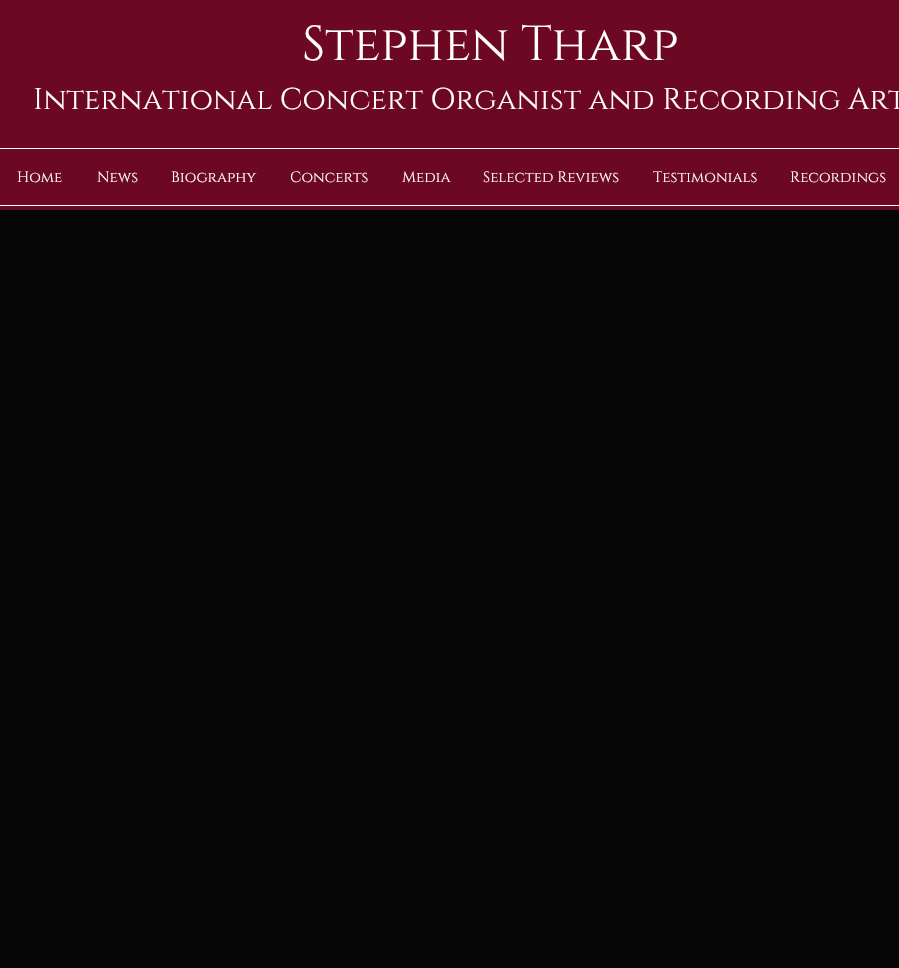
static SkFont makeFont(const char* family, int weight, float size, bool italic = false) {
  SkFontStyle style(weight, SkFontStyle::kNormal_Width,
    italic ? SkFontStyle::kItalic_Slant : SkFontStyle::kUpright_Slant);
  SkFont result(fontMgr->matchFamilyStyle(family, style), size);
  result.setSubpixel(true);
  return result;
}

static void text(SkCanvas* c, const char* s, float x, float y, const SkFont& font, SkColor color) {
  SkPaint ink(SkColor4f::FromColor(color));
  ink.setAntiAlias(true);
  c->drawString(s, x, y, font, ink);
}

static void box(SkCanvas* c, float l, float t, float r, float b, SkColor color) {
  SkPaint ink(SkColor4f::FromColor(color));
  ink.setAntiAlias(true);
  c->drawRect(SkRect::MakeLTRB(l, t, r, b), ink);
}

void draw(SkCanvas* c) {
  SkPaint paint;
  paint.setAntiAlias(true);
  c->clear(0xff070606);
  box(c, 0, 0, 899, 210, 0xff6d0823);
  SkFont face1 = makeFont("Cinzel", 400, 49);
  text(c, "Stephen Tharp", 302, 60, face1, 0xffffffff);
  SkFont face2 = makeFont("Cinzel", 400, 30);
  text(c, "International Concert Organist and Recording Art", 33, 109, face2, 0xffffffff);
  box(c, 0, 148, 899, 149, 0xffffffff);
  SkFont face3 = makeFont("Cinzel", 400, 15);
  text(c, "Home", 17, 182, face3, 0xffffffff);
  text(c, "News", 97, 182, face3, 0xffffffff);
  text(c, "Biography", 171, 182, face3, 0xffffffff);
  text(c, "Concerts", 290, 182, face3, 0xffffffff);
  text(c, "Media", 402, 182, face3, 0xffffffff);
  text(c, "Selected Reviews", 483, 182, face3, 0xffffffff);
  text(c, "Testimonials", 653, 182, face3, 0xffffffff);
  text(c, "Recordings", 790, 182, face3, 0xffffffff);
  box(c, 0, 205, 899, 206, 0xffffffff);
}
